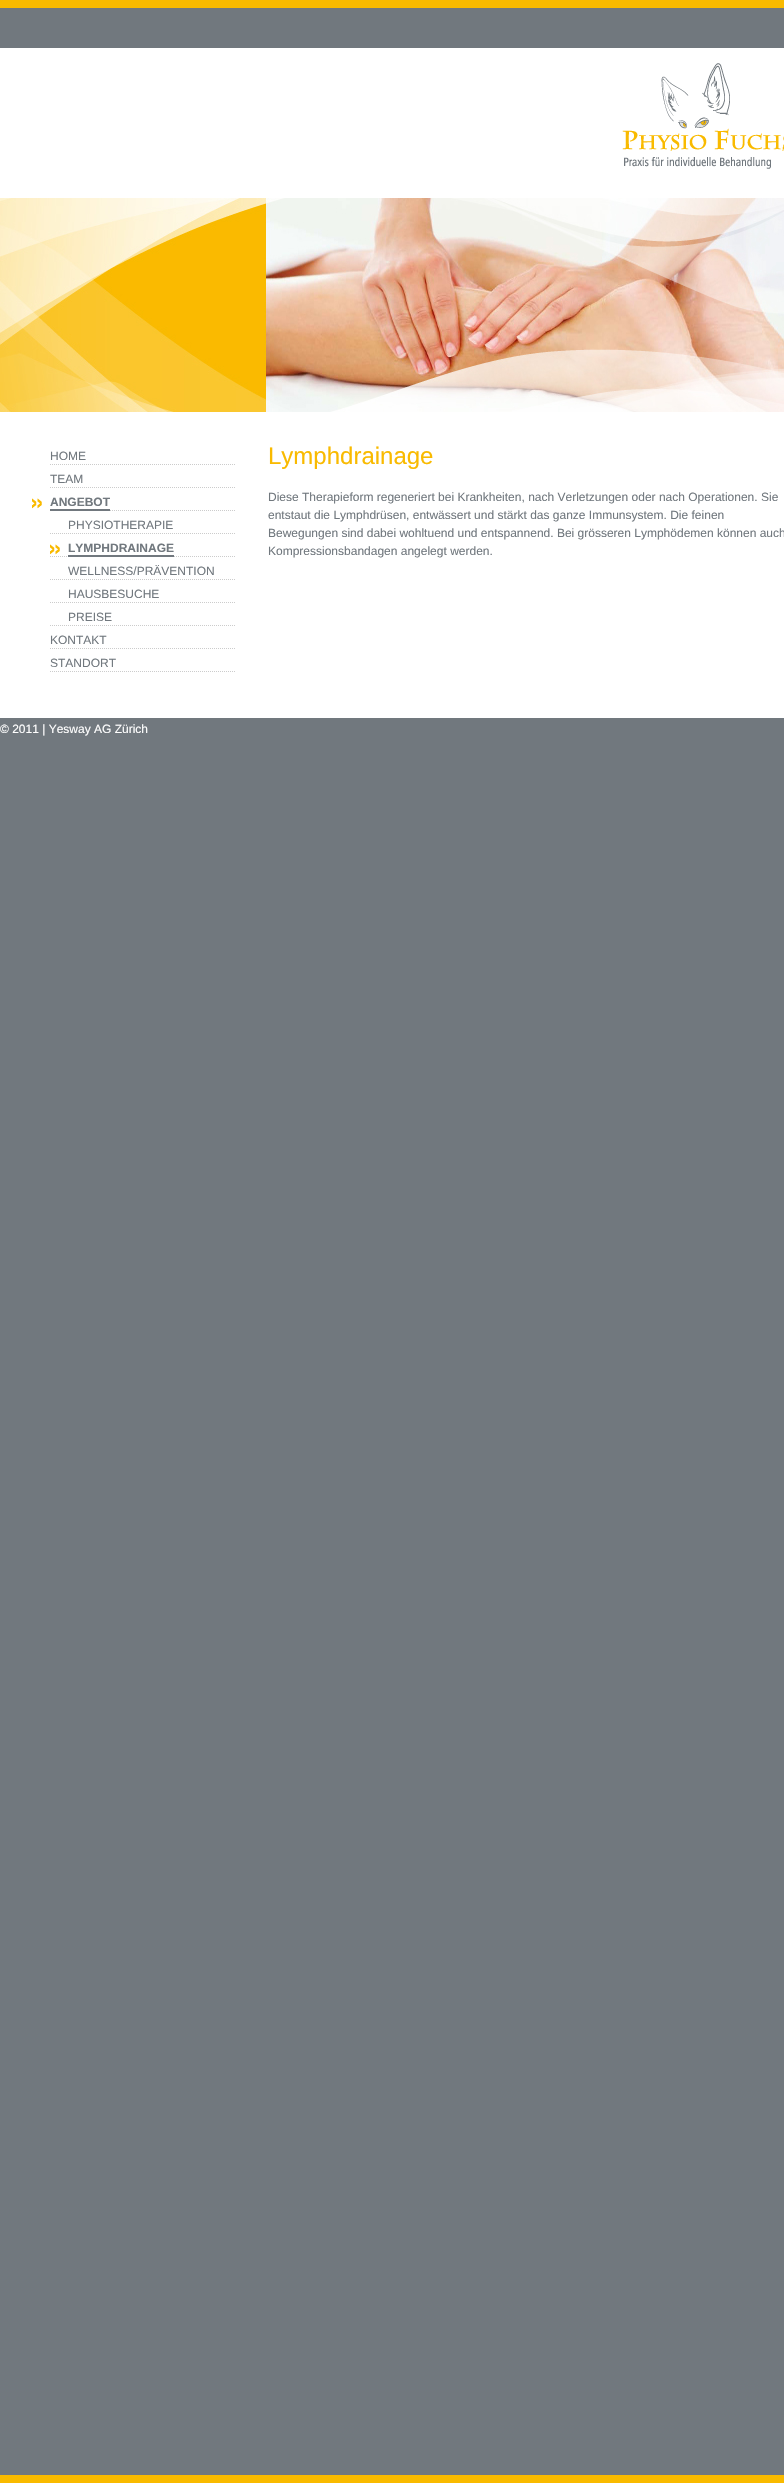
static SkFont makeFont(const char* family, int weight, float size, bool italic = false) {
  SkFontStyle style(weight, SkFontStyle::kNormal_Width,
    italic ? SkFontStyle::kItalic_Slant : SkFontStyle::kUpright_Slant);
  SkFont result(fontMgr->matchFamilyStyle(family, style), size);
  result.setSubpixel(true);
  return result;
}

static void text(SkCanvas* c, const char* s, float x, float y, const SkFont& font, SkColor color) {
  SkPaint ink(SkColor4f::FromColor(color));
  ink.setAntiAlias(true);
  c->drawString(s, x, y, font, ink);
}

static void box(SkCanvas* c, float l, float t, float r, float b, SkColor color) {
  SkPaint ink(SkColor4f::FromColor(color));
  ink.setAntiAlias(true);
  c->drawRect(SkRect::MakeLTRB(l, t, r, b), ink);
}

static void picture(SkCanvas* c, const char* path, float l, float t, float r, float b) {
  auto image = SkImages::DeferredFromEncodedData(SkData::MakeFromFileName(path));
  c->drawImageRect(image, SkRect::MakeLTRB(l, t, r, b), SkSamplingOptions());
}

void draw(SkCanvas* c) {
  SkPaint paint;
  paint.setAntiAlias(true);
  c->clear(0xff71787e);
  box(c, 0, 0, 784, 8, 0xfff9ba00);
  box(c, 0, 48, 784, 718, 0xffffffff);
  picture(c, "img_01.png", 622, 63, 784, 169);
  picture(c, "img_02.png", 0, 198, 784, 412);
  paint.setStyle(SkPaint::kStroke_Style);
  paint.setStrokeWidth(1);
  paint.setColor(0xffcccccc);
  paint.setPathEffect(SkDashPathEffect::Make({{1, 1}}, 0));
  c->drawPath(SkPathBuilder().moveTo(50, 464.5f).lineTo(236, 464.5f).detach(), paint);
  paint.setPathEffect(nullptr);
  SkFont face1 = makeFont("Liberation Sans", 400, 12);
  text(c, "HOME", 50, 460, face1, 0xff71787e);
  paint.setPathEffect(SkDashPathEffect::Make({{1, 1}}, 0));
  c->drawPath(SkPathBuilder().moveTo(50, 487.5f).lineTo(236, 487.5f).detach(), paint);
  paint.setPathEffect(nullptr);
  text(c, "TEAM", 50, 483, face1, 0xff71787e);
  picture(c, "img_03.png", 32, 498, 42, 509);
  paint.setPathEffect(SkDashPathEffect::Make({{1, 1}}, 0));
  c->drawPath(SkPathBuilder().moveTo(50, 510.5f).lineTo(236, 510.5f).detach(), paint);
  paint.setPathEffect(nullptr);
  SkFont face2 = makeFont("Liberation Sans", 700, 12);
  text(c, "ANGEBOT", 50, 506, face2, 0xff71787e);
  box(c, 50, 509, 110, 511, 0xff71787e);
  paint.setPathEffect(SkDashPathEffect::Make({{1, 1}}, 0));
  c->drawPath(SkPathBuilder().moveTo(50, 533.5f).lineTo(236, 533.5f).detach(), paint);
  paint.setPathEffect(nullptr);
  text(c, "PHYSIOTHERAPIE", 68, 529, face1, 0xff71787e);
  picture(c, "img_03.png", 50, 544, 60, 555);
  paint.setPathEffect(SkDashPathEffect::Make({{1, 1}}, 0));
  c->drawPath(SkPathBuilder().moveTo(50, 556.5f).lineTo(236, 556.5f).detach(), paint);
  paint.setPathEffect(nullptr);
  text(c, "LYMPHDRAINAGE", 68, 552, face2, 0xff71787e);
  box(c, 68, 555, 174, 557, 0xff71787e);
  paint.setPathEffect(SkDashPathEffect::Make({{1, 1}}, 0));
  c->drawPath(SkPathBuilder().moveTo(50, 579.5f).lineTo(236, 579.5f).detach(), paint);
  paint.setPathEffect(nullptr);
  text(c, "WELLNESS/PRÄVENTION", 68, 575, face1, 0xff71787e);
  paint.setPathEffect(SkDashPathEffect::Make({{1, 1}}, 0));
  c->drawPath(SkPathBuilder().moveTo(50, 602.5f).lineTo(236, 602.5f).detach(), paint);
  paint.setPathEffect(nullptr);
  text(c, "HAUSBESUCHE", 68, 598, face1, 0xff71787e);
  paint.setPathEffect(SkDashPathEffect::Make({{1, 1}}, 0));
  c->drawPath(SkPathBuilder().moveTo(50, 625.5f).lineTo(236, 625.5f).detach(), paint);
  paint.setPathEffect(nullptr);
  text(c, "PREISE", 68, 621, face1, 0xff71787e);
  paint.setPathEffect(SkDashPathEffect::Make({{1, 1}}, 0));
  c->drawPath(SkPathBuilder().moveTo(50, 648.5f).lineTo(236, 648.5f).detach(), paint);
  paint.setPathEffect(nullptr);
  text(c, "KONTAKT", 50, 644, face1, 0xff71787e);
  paint.setPathEffect(SkDashPathEffect::Make({{1, 1}}, 0));
  c->drawPath(SkPathBuilder().moveTo(50, 671.5f).lineTo(236, 671.5f).detach(), paint);
  paint.setPathEffect(nullptr);
  text(c, "STANDORT", 50, 667, face1, 0xff71787e);
  SkFont face3 = makeFont("Liberation Sans", 400, 24);
  text(c, "Lymphdrainage", 268, 464, face3, 0xfff9ba00);
  text(c, "Diese Therapieform regeneriert bei Krankheiten, nach Verletzungen oder nach Operationen. Sie", 268, 501, face1, 0xff71787e);
  text(c, "entstaut die Lymphdrüsen, entwässert und stärkt das ganze Immunsystem. Die feinen", 268, 519, face1, 0xff71787e);
  text(c, "Bewegungen sind dabei wohltuend und entspannend. Bei grösseren Lymphödemen können auch", 268, 537, face1, 0xff71787e);
  text(c, "Kompressionsbandagen angelegt werden.", 268, 555, face1, 0xff71787e);
  text(c, "© 2011 | Yesway AG Zürich", 0, 733, face1, 0xffffffff);
  box(c, 0, 2475, 784, 2483, 0xfff9ba00);
}
